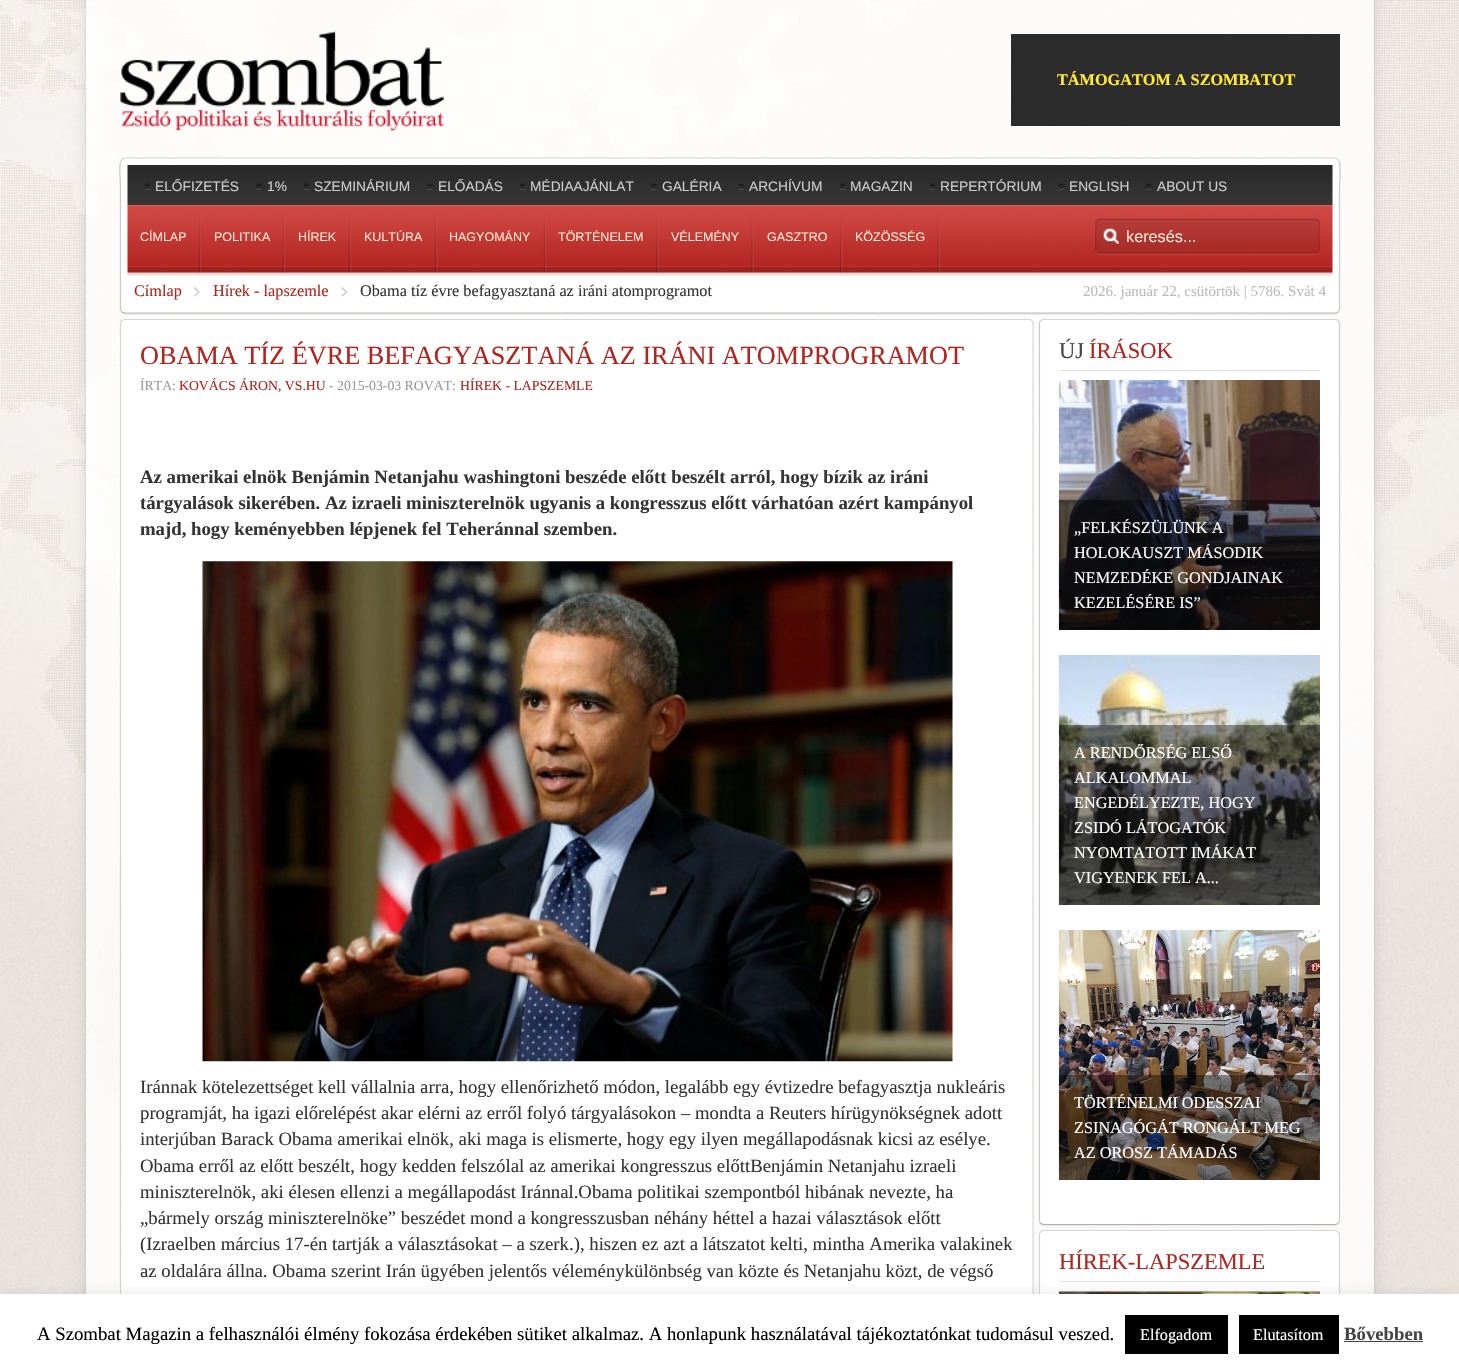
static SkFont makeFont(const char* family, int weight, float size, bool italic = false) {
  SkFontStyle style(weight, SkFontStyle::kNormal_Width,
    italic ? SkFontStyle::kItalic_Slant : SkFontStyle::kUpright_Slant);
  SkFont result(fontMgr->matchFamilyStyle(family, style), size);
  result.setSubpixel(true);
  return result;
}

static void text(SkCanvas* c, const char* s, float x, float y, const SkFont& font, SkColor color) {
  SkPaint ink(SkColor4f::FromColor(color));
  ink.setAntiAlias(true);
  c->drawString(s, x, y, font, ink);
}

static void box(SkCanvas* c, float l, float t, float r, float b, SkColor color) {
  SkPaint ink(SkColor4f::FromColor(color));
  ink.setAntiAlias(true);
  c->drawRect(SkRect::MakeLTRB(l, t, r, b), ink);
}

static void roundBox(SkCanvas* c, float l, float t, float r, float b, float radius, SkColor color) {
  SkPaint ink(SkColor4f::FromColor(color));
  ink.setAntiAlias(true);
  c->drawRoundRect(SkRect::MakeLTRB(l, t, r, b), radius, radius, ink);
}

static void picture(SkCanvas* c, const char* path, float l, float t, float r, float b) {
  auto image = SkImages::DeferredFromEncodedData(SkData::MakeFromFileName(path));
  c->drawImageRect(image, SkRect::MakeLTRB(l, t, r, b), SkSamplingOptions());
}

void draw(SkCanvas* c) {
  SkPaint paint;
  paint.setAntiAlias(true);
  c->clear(0xffffffff);
  picture(c, "img_01.png", 0, 1112, 1459, 1294);
  picture(c, "img_02.png", 0, 0, 1459, 1113);
  c->save();
  c->clipPath(SkPathBuilder(SkPathFillType::kEvenOdd).moveTo(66, 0).lineTo(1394, 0).lineTo(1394, 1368).lineTo(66, 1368).close().moveTo(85, 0).lineTo(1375, 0).lineTo(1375, 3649).lineTo(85, 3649).close().detach(), true);
  paint.setColor(0x1a000000);
  paint.setMaskFilter(SkMaskFilter::MakeBlur(kNormal_SkBlurStyle, 6));
  c->drawRect(SkRect::MakeLTRB(85, 0, 1375, 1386), paint);
  paint.setMaskFilter(nullptr);
  c->restore();
  box(c, 86, 0, 1374, 1294, 0xccffffff);
  box(c, 1374, 0, 1375, 1294, 0x1a000000);
  box(c, 85, 0, 86, 1294, 0x1a000000);
  picture(c, "img_03.png", 120, 31, 444, 132);
  box(c, 1011, 34, 1340, 126, 0xff2c2c2c);
  SkFont face1 = makeFont("Liberation Serif", 700, 16.25f);
  text(c, "TÁMOGATOM A SZOMBATOT", 1057, 85, face1, 0xffffe937);
  paint.setColor(0x0f000000);
  paint.setMaskFilter(SkMaskFilter::MakeBlur(kNormal_SkBlurStyle, 0.5f));
  c->drawRoundRect(SkRect::MakeLTRB(120, 159, 1340, 315), 5, 5, paint);
  paint.setMaskFilter(nullptr);
  roundBox(c, 121, 159, 1339, 313, 4, 0xffffffff);
  paint.setStyle(SkPaint::kStroke_Style);
  paint.setStrokeWidth(1.2f);
  paint.setColor(0x40000000);
  c->drawPath(SkPathBuilder().moveTo(1338, 312).lineTo(1335, 313).lineTo(125, 313).lineTo(122, 312).detach(), paint);
  paint.setColor(0x26000000);
  c->drawPath(SkPathBuilder().moveTo(122, 312).lineTo(120.5f, 309).lineTo(120.5f, 187).cubicTo(120.5f, 178.5f, 116.5f, 158, 125, 158).lineTo(1335, 158).cubicTo(1343.5f, 158, 1339.5f, 178.5f, 1339.5f, 187).lineTo(1339.5f, 309).lineTo(1338, 312).detach(), paint);
  picture(c, "img_04.png", 127, 165, 1333, 205);
  picture(c, "img_05.png", 145, 183, 150, 190);
  SkFont face2 = makeFont("Liberation Sans", 400, 13.75f);
  text(c, "ELŐFIZETÉS", 155, 191, face2, 0xffcccccc);
  picture(c, "img_06.png", 256, 183, 262, 190);
  text(c, "1%", 267, 191, face2, 0xffcccccc);
  picture(c, "img_07.png", 304, 183, 309, 190);
  text(c, "SZEMINÁRIUM", 314, 191, face2, 0xffcccccc);
  picture(c, "img_08.png", 427, 183, 433, 190);
  text(c, "ELŐADÁS", 438, 191, face2, 0xffcccccc);
  picture(c, "img_05.png", 520, 183, 525, 190);
  text(c, "MÉDIAAJÁNLAT", 530, 191, face2, 0xffcccccc);
  picture(c, "img_09.png", 651, 183, 657, 190);
  text(c, "GALÉRIA", 662, 191, face2, 0xffcccccc);
  picture(c, "img_10.png", 739, 183, 744, 190);
  text(c, "ARCHÍVUM", 749, 191, face2, 0xffcccccc);
  picture(c, "img_11.png", 840, 183, 845, 190);
  text(c, "MAGAZIN", 850, 191, face2, 0xffcccccc);
  picture(c, "img_12.png", 930, 183, 935, 190);
  text(c, "REPERTÓRIUM", 940, 191, face2, 0xffcccccc);
  picture(c, "img_13.png", 1058, 183, 1064, 190);
  text(c, "ENGLISH", 1069, 191, face2, 0xffcccccc);
  picture(c, "img_14.png", 1146, 183, 1152, 190);
  text(c, "ABOUT US", 1157, 191, face2, 0xffcccccc);
  picture(c, "img_15.png", 127, 205, 1333, 276);
  picture(c, "img_16.png", 198, 213, 202, 273);
  SkFont face3 = makeFont("Liberation Sans", 400, 12.5f);
  text(c, "CÍMLAP", 140, 241, face3, 0xfff4e4d5);
  picture(c, "img_17.png", 282, 214, 285, 273);
  text(c, "POLITIKA", 214, 241, face3, 0xfff4e4d5);
  picture(c, "img_18.png", 348, 213, 352, 273);
  text(c, "HÍREK", 298, 241, face3, 0xfff4e4d5);
  picture(c, "img_19.png", 435, 213, 438, 273);
  text(c, "KULTÚRA", 364, 241, face3, 0xfff4e4d5);
  picture(c, "img_20.png", 543, 213, 547, 273);
  text(c, "HAGYOMÁNY", 449, 241, face3, 0xfff4e4d5);
  picture(c, "img_21.png", 656, 217, 659, 273);
  text(c, "TÖRTÉNELEM", 558, 241, face3, 0xfff4e4d5);
  picture(c, "img_22.png", 751, 217, 754, 273);
  text(c, "VÉLEMÉNY", 671, 241, face3, 0xfff4e4d5);
  picture(c, "img_23.png", 840, 213, 843, 273);
  text(c, "GASZTRO", 767, 241, face3, 0xfff4e4d5);
  picture(c, "img_24.png", 937, 214, 940, 273);
  text(c, "KÖZÖSSÉG", 855, 241, face3, 0xfff4e4d5);
  picture(c, "img_25.png", 1095, 218, 1320, 255);
  SkFont face4 = makeFont("Liberation Sans", 400, 16.25f);
  text(c, "keresés...", 1126, 242, face4, 0xfff4e4d5);
  picture(c, "img_26.png", 193, 287, 200, 297);
  SkFont face5 = makeFont("Liberation Serif", 400, 16.25f);
  text(c, "Címlap", 134, 296, face5, 0xffb2251f);
  picture(c, "img_27.png", 341, 287, 348, 297);
  text(c, "Hírek - lapszemle", 213, 296, face5, 0xffb2251f);
  text(c, "Obama tíz évre befagyasztaná az iráni atomprogramot", 360, 296, face5, 0xff343434);
  SkFont face6 = makeFont("Liberation Serif", 400, 15);
  text(c, "2026. január 22, csütörtök | 5786. Svát 4", 1083, 296, face6, 0xffbbbbbb);
  roundBox(c, 121, 320, 1033, 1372, 4, 0xffffffff);
  c->drawPath(SkPathBuilder().moveTo(122, 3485.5f).cubicTo(121, 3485, 120.5f, 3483.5f, 120.5f, 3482.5f).lineTo(120.5f, 324).cubicTo(120.5f, 322.5f, 121, 321.5f, 122, 320.5f).cubicTo(122.5f, 320, 124, 319.5f, 125, 319.5f).lineTo(1029, 319.5f).cubicTo(1030, 319.5f, 1031, 320, 1032, 320.5f).cubicTo(1032.5f, 321.5f, 1033, 322.5f, 1033, 324).lineTo(1033, 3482.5f).cubicTo(1033, 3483.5f, 1032.5f, 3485, 1032, 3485.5f).detach(), paint);
  SkFont face7 = makeFont("Liberation Serif", 400, 26.25f);
  text(c, "OBAMA TÍZ ÉVRE BEFAGYASZTANÁ AZ IRÁNI ATOMPROGRAMOT", 140, 364, face7, 0xffb2251f);
  SkFont face8 = makeFont("Liberation Serif", 400, 13.75f);
  text(c, "ÍRTA:", 140, 390, face8, 0xff999999);
  text(c, "KOVÁCS ÁRON, VS.HU", 179, 390, face8, 0xffb2251f);
  text(c, "- 2015-03-03 ROVAT:", 329, 390, face8, 0xff999999);
  text(c, "HÍREK - LAPSZEMLE", 460, 390, face8, 0xffb2251f);
  SkFont face9 = makeFont("Liberation Serif", 700, 18.75f);
  text(c, "Az amerikai elnök Benjámin Netanjahu washingtoni beszéde előtt beszélt arról, hogy bízik az iráni", 140, 483, face9, 0xff343434);
  text(c, "tárgyalások sikerében. Az izraeli miniszterelnök ugyanis a kongresszus előtt várhatóan azért kampányol", 140, 509, face9, 0xff343434);
  text(c, "majd, hogy keményebben lépjenek fel Teheránnal szemben.", 140, 535, face9, 0xff343434);
  picture(c, "img_28.png", 202, 561, 953, 1062);
  SkFont face10 = makeFont("Liberation Serif", 400, 18.75f);
  text(c, "Iránnak kötelezettséget kell vállalnia arra, hogy ellenőrizhető módon, legalább egy évtizedre befagyasztja nukleáris", 140, 1093, face10, 0xff343434);
  text(c, "programját, ha igazi előrelépést akar elérni az erről folyó tárgyalásokon – mondta a Reuters hírügynökségnek adott", 140, 1119, face10, 0xff343434);
  text(c, "interjúban Barack Obama amerikai elnök, aki maga is elismerte, hogy egy ilyen megállapodásnak kicsi az esélye.", 140, 1145, face10, 0xff343434);
  text(c, "Obama erről az előtt beszélt, hogy kedden felszólal az amerikai kongresszus előttBenjámin Netanjahu izraeli", 140, 1172, face10, 0xff343434);
  text(c, "miniszterelnök, aki élesen ellenzi a megállapodást Iránnal.Obama politikai szempontból hibának nevezte, ha", 140, 1198, face10, 0xff343434);
  text(c, "„bármely ország miniszterelnöke” beszédet mond a kongresszusban néhány héttel a hazai választások előtt", 140, 1224, face10, 0xff343434);
  text(c, "(Izraelben március 17-én tartják a választásokat – a szerk.), hiszen ez azt a látszatot kelti, mintha Amerika valakinek", 140, 1250, face10, 0xff343434);
  text(c, "az oldalára állna. Obama szerint Irán ügyében jelentős véleménykülönbség van közte és Netanjahu közt, de végső", 140, 1277, face10, 0xff343434);
  paint.setStyle(SkPaint::kFill_Style);
  paint.setColor(0x0f000000);
  paint.setMaskFilter(SkMaskFilter::MakeBlur(kNormal_SkBlurStyle, 0.5f));
  c->drawRoundRect(SkRect::MakeLTRB(1039, 320, 1340, 1226), 5, 5, paint);
  paint.setMaskFilter(nullptr);
  roundBox(c, 1040, 320, 1339, 1224, 4, 0xffffffff);
  paint.setStyle(SkPaint::kStroke_Style);
  paint.setColor(0x40000000);
  c->drawPath(SkPathBuilder().moveTo(1338, 1223).cubicTo(1337.5f, 1224, 1336, 1224.5f, 1335, 1224.5f).lineTo(1044, 1224.5f).cubicTo(1042.5f, 1224.5f, 1041.5f, 1224, 1040.5f, 1223).detach(), paint);
  paint.setColor(0x26000000);
  c->drawPath(SkPathBuilder().moveTo(1040.5f, 1223).cubicTo(1040, 1222.5f, 1039.5f, 1221, 1039.5f, 1220).lineTo(1039.5f, 324).cubicTo(1039.5f, 322.5f, 1040, 321.5f, 1040.5f, 320.5f).cubicTo(1041.5f, 320, 1042.5f, 319.5f, 1044, 319.5f).lineTo(1335, 319.5f).cubicTo(1336, 319.5f, 1337.5f, 320, 1338, 320.5f).cubicTo(1339, 321.5f, 1339.5f, 322.5f, 1339.5f, 324).lineTo(1339.5f, 1220).cubicTo(1339.5f, 1221, 1339, 1222.5f, 1338, 1223).detach(), paint);
  box(c, 1059, 370, 1320, 371, 0xffe2e2e2);
  SkFont face11 = makeFont("Liberation Serif", 400, 22.5f);
  text(c, "ÚJ", 1059, 358, face11, 0xff444444);
  text(c, "ÍRÁSOK", 1089, 358, face11, 0xffb2251f);
  picture(c, "img_29.png", 1058, 380, 1320, 630);
  box(c, 1059, 500, 1320, 630, 0x66000000);
  text(c, "„FELKÉSZÜLÜNK A", 1074, 533, face5, 0xffffffff);
  text(c, "HOLOKAUSZT MÁSODIK", 1074, 558, face5, 0xffffffff);
  text(c, "NEMZEDÉKE GONDJAINAK", 1074, 583, face5, 0xffffffff);
  text(c, "KEZELÉSÉRE IS”", 1074, 608, face5, 0xffffffff);
  picture(c, "img_30.png", 1058, 655, 1320, 905);
  box(c, 1059, 725, 1320, 905, 0x66000000);
  text(c, "A RENDŐRSÉG ELSŐ", 1074, 758, face5, 0xffffffff);
  text(c, "ALKALOMMAL", 1074, 783, face5, 0xffffffff);
  text(c, "ENGEDÉLYEZTE, HOGY", 1074, 808, face5, 0xffffffff);
  text(c, "ZSIDÓ LÁTOGATÓK", 1074, 833, face5, 0xffffffff);
  text(c, "NYOMTATOTT IMÁKAT", 1074, 858, face5, 0xffffffff);
  text(c, "VIGYENEK FEL A...", 1074, 883, face5, 0xffffffff);
  picture(c, "img_31.png", 1058, 930, 1320, 1180);
  box(c, 1059, 1075, 1320, 1180, 0x66000000);
  text(c, "TÖRTÉNELMI ODESSZAI", 1074, 1108, face5, 0xffffffff);
  text(c, "ZSINAGÓGÁT RONGÁLT MEG", 1074, 1133, face5, 0xffffffff);
  text(c, "AZ OROSZ TÁMADÁS", 1074, 1158, face5, 0xffffffff);
  roundBox(c, 1040, 1231, 1339, 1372, 4, 0xffffffff);
  c->drawPath(SkPathBuilder().moveTo(1040.5f, 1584.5f).cubicTo(1040, 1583.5f, 1039.5f, 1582.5f, 1039.5f, 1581).lineTo(1039.5f, 1235).cubicTo(1039.5f, 1234, 1040, 1232.5f, 1040.5f, 1232).cubicTo(1041.5f, 1231, 1042.5f, 1230.5f, 1044, 1230.5f).lineTo(1335, 1230.5f).cubicTo(1336, 1230.5f, 1337.5f, 1231, 1338, 1232).cubicTo(1339, 1232.5f, 1339.5f, 1234, 1339.5f, 1235).lineTo(1339.5f, 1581).cubicTo(1339.5f, 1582.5f, 1339, 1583.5f, 1338, 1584.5f).detach(), paint);
  box(c, 1059, 1281, 1320, 1282, 0xffe2e2e2);
  text(c, "HÍREK-LAPSZEMLE", 1059, 1269, face11, 0xffb2251f);
  picture(c, "img_32.png", 1058, 1291, 1320, 1294);
  paint.setStyle(SkPaint::kFill_Style);
  paint.setColor(0x4dacabab);
  paint.setMaskFilter(SkMaskFilter::MakeBlur(kNormal_SkBlurStyle, 6));
  c->drawRect(SkRect::MakeLTRB(0, 1293, 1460, 1368), paint);
  paint.setMaskFilter(nullptr);
  box(c, 0, 1294, 1459, 1368, 0xffffffff);
  text(c, "A Szombat Magazin a felhasználói élmény fokozása érdekében sütiket alkalmaz. A honlapunk használatával tájékoztatónkat tudomásul veszed.", 37, 1340, face10, 0xff000000);
  box(c, 1125, 1315, 1228, 1354, 0xff000000);
  text(c, "Elfogadom", 1140, 1340, face5, 0xffffffff);
  box(c, 1239, 1315, 1339, 1354, 0xff000000);
  text(c, "Elutasítom", 1253, 1340, face5, 0xffffffff);
  text(c, "Bővebben", 1344, 1340, face9, 0xff444444);
  box(c, 1344, 1341, 1423, 1342, 0xff444444);
}
